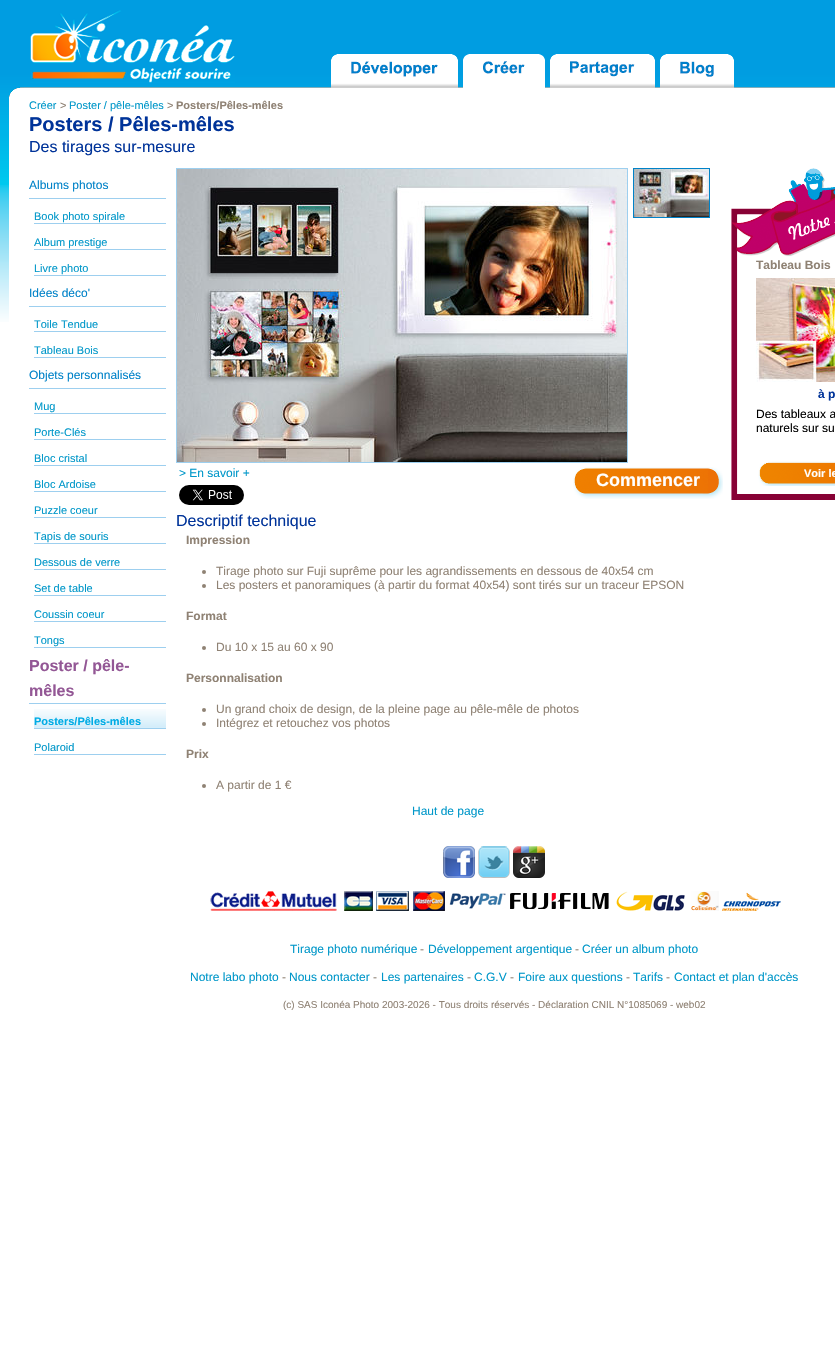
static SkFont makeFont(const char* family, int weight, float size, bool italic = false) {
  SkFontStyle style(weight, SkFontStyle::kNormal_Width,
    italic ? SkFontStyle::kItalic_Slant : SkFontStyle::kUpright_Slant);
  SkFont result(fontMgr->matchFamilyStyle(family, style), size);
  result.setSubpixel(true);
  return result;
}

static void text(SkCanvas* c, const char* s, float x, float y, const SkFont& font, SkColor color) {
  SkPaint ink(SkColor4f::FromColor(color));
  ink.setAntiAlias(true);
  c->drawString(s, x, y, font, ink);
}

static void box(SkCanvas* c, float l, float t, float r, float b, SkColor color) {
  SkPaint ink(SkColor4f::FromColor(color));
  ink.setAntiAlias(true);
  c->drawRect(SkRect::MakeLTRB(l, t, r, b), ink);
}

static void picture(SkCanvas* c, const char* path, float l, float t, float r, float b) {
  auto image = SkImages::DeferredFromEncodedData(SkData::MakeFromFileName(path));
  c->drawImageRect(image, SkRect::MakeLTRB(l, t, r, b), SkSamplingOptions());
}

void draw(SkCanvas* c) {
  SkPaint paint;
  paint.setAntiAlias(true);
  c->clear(0xffffffff);
  picture(c, "img_01.png", 0, 0, 835, 322);
  picture(c, "img_02.png", 9, 87, 835, 322);
  picture(c, "img_03.png", 30, 10, 235, 83);
  picture(c, "img_04.png", 331, 54, 348, 88);
  picture(c, "img_05.png", 348, 54, 458, 88);
  picture(c, "img_06.png", 351, 61, 438, 77);
  picture(c, "img_07.png", 463, 54, 480, 88);
  picture(c, "img_08.png", 480, 54, 545, 88);
  picture(c, "img_09.png", 483, 61, 525, 74);
  picture(c, "img_04.png", 550, 54, 567, 88);
  picture(c, "img_10.png", 567, 54, 655, 88);
  picture(c, "img_11.png", 570, 61, 635, 77);
  picture(c, "img_04.png", 660, 54, 677, 88);
  picture(c, "img_12.png", 677, 54, 734, 88);
  picture(c, "img_13.png", 680, 61, 714, 77);
  SkFont face1 = makeFont("Liberation Sans", 400, 11);
  text(c, "Créer", 29, 109, face1, 0xff0097c9);
  text(c, ">", 60, 109, face1, 0xff8f8274);
  text(c, "Poster / pêle-mêles", 69, 109, face1, 0xff0097c9);
  text(c, ">", 167, 109, face1, 0xff8f8274);
  SkFont face2 = makeFont("Liberation Sans", 700, 11);
  text(c, "Posters/Pêles-mêles", 176, 109, face2, 0xff8f8274);
  SkFont face3 = makeFont("Liberation Sans", 700, 20);
  text(c, "Posters / Pêles-mêles", 29, 131, face3, 0xff003399);
  SkFont face4 = makeFont("Liberation Sans", 400, 16);
  text(c, "Des tirages sur-mesure", 29, 152, face4, 0xff003399);
  box(c, 29, 198, 166, 199, 0xff9dcfef);
  SkFont face5 = makeFont("Liberation Sans", 400, 12);
  text(c, "Albums photos", 29, 189, face5, 0xff0082c8);
  box(c, 34, 223, 166, 224, 0xff9dcfef);
  text(c, "Book photo spirale", 34, 220, face1, 0xff0097c9);
  box(c, 34, 249, 166, 250, 0xff9dcfef);
  text(c, "Album prestige", 34, 246, face1, 0xff0097c9);
  box(c, 34, 275, 166, 276, 0xff9dcfef);
  text(c, "Livre photo", 34, 272, face1, 0xff0097c9);
  box(c, 29, 306, 166, 307, 0xff9dcfef);
  text(c, "Idées déco'", 29, 297, face5, 0xff0082c8);
  box(c, 34, 331, 166, 332, 0xff9dcfef);
  text(c, "Toile Tendue", 34, 328, face1, 0xff0097c9);
  box(c, 34, 357, 166, 358, 0xff9dcfef);
  text(c, "Tableau Bois", 34, 354, face1, 0xff0097c9);
  box(c, 29, 388, 166, 389, 0xff9dcfef);
  text(c, "Objets personnalisés", 29, 379, face5, 0xff0082c8);
  box(c, 34, 413, 166, 414, 0xff9dcfef);
  text(c, "Mug", 34, 410, face1, 0xff0097c9);
  box(c, 34, 439, 166, 440, 0xff9dcfef);
  text(c, "Porte-Clés", 34, 436, face1, 0xff0097c9);
  box(c, 34, 465, 166, 466, 0xff9dcfef);
  text(c, "Bloc cristal", 34, 462, face1, 0xff0097c9);
  box(c, 34, 491, 166, 492, 0xff9dcfef);
  text(c, "Bloc Ardoise", 34, 488, face1, 0xff0097c9);
  box(c, 34, 517, 166, 518, 0xff9dcfef);
  text(c, "Puzzle coeur", 34, 514, face1, 0xff0097c9);
  box(c, 34, 543, 166, 544, 0xff9dcfef);
  text(c, "Tapis de souris", 34, 540, face1, 0xff0097c9);
  box(c, 34, 569, 166, 570, 0xff9dcfef);
  text(c, "Dessous de verre", 34, 566, face1, 0xff0097c9);
  box(c, 34, 595, 166, 596, 0xff9dcfef);
  text(c, "Set de table", 34, 592, face1, 0xff0097c9);
  box(c, 34, 621, 166, 622, 0xff9dcfef);
  text(c, "Coussin coeur", 34, 618, face1, 0xff0097c9);
  box(c, 34, 647, 166, 648, 0xff9dcfef);
  text(c, "Tongs", 34, 644, face1, 0xff0097c9);
  box(c, 29, 703, 166, 704, 0xff9dcfef);
  SkFont face6 = makeFont("Liberation Sans", 700, 16);
  text(c, "Poster / pêle-", 29, 671, face6, 0xff935795);
  text(c, "mêles", 29, 696, face6, 0xff935795);
  box(c, 34, 728, 166, 729, 0xff9dcfef);
  picture(c, "img_14.png", 34, 709, 166, 728);
  text(c, "Posters/Pêles-mêles", 34, 725, face2, 0xff00ace5);
  box(c, 34, 754, 166, 755, 0xff9dcfef);
  text(c, "Polaroid", 34, 751, face1, 0xff0097c9);
  picture(c, "img_15.png", 731, 168, 835, 500);
  SkFont face7 = makeFont("Liberation Sans", 700, 12);
  text(c, "Tableau Bois", 756, 269, face7, 0xff8f8274);
  picture(c, "img_16.png", 756, 278, 835, 382);
  text(c, "à p", 818, 398, face7, 0xff003399);
  text(c, "Des tableaux a", 756, 418, face5, 0xff000000);
  text(c, "naturels sur su", 756, 432, face5, 0xff000000);
  picture(c, "img_17.png", 758, 461, 781, 486);
  picture(c, "img_18.png", 781, 461, 835, 486);
  text(c, "Voir le", 804, 477, face2, 0xffffffff);
  paint.setStyle(SkPaint::kStroke_Style);
  paint.setStrokeWidth(1);
  paint.setColor(0xff9dcfef);
  c->drawRect(SkRect::MakeLTRB(176.5f, 168.5f, 627.5f, 462.5f), paint);
  picture(c, "img_19.png", 177, 169, 627, 462);
  paint.setColor(0xff0082c8);
  c->drawRect(SkRect::MakeLTRB(633.5f, 168.5f, 709.5f, 217.5f), paint);
  picture(c, "img_20.png", 634, 169, 709, 217);
  text(c, "> En savoir +", 179, 477, face5, 0xff0097c9);
  picture(c, "img_21.png", 179, 485, 244, 505);
  picture(c, "img_22.png", 573, 467, 588, 499);
  picture(c, "img_23.png", 708, 467, 723, 499);
  picture(c, "img_24.png", 588, 467, 708, 499);
  SkFont face8 = makeFont("Liberation Sans", 700, 18);
  text(c, "Commencer", 596, 486, face8, 0xffffffff);
  text(c, "Descriptif technique", 176, 526, face4, 0xff003399);
  text(c, "Impression", 186, 544, face7, 0xff8f8274);
  paint.setStyle(SkPaint::kFill_Style);
  paint.setColor(0xff8f8274);
  c->drawCircle(204, 572, 2, paint);
  text(c, "Tirage photo sur Fuji suprême pour les agrandissements en dessous de 40x54 cm", 216, 575, face5, 0xff8f8274);
  c->drawCircle(204, 586, 2, paint);
  text(c, "Les posters et panoramiques (à partir du format 40x54) sont tirés sur un traceur EPSON", 216, 589, face5, 0xff8f8274);
  text(c, "Format", 186, 620, face7, 0xff8f8274);
  c->drawCircle(204, 648, 2, paint);
  text(c, "Du 10 x 15 au 60 x 90", 216, 651, face5, 0xff8f8274);
  text(c, "Personnalisation", 186, 682, face7, 0xff8f8274);
  c->drawCircle(204, 710, 2, paint);
  text(c, "Un grand choix de design, de la pleine page au pêle-mêle de photos", 216, 713, face5, 0xff8f8274);
  c->drawCircle(204, 724, 2, paint);
  text(c, "Intégrez et retouchez vos photos", 216, 727, face5, 0xff8f8274);
  text(c, "Prix", 186, 758, face7, 0xff8f8274);
  c->drawCircle(204, 786, 2, paint);
  text(c, "A partir de 1 €", 216, 789, face5, 0xff8f8274);
  text(c, "Haut de page", 412, 815, face5, 0xff0097c9);
  picture(c, "img_25.png", 443, 846, 475, 878);
  picture(c, "img_26.png", 478, 846, 510, 878);
  picture(c, "img_27.png", 513, 846, 545, 878);
  picture(c, "img_28.png", 210, 891, 337, 911);
  picture(c, "img_29.png", 344, 891, 373, 911);
  picture(c, "img_30.png", 376, 891, 409, 911);
  picture(c, "img_31.png", 413, 891, 445, 911);
  picture(c, "img_32.png", 449, 893, 506, 909);
  picture(c, "img_33.png", 510, 893, 609, 909);
  picture(c, "img_34.png", 616, 891, 685, 911);
  picture(c, "img_35.png", 691, 891, 719, 911);
  picture(c, "img_36.png", 722, 892, 781, 911);
  text(c, "Tirage photo numérique", 290, 953, face5, 0xff0097c9);
  text(c, "-", 420, 953, face5, 0xff8f8274);
  text(c, "Développement argentique", 428, 953, face5, 0xff0097c9);
  text(c, "-", 575, 953, face5, 0xff8f8274);
  text(c, "Créer un album photo", 582, 953, face5, 0xff0097c9);
  text(c, "Notre labo photo", 190, 981, face5, 0xff0097c9);
  text(c, "-", 282, 981, face5, 0xff8f8274);
  text(c, "Nous contacter", 289, 981, face5, 0xff0097c9);
  text(c, "-", 373, 981, face5, 0xff8f8274);
  text(c, "Les partenaires", 381, 981, face5, 0xff0097c9);
  text(c, "-", 467, 981, face5, 0xff8f8274);
  text(c, "C.G.V", 474, 981, face5, 0xff0097c9);
  text(c, "-", 510, 981, face5, 0xff8f8274);
  text(c, "Foire aux questions", 518, 981, face5, 0xff0097c9);
  text(c, "-", 626, 981, face5, 0xff8f8274);
  text(c, "Tarifs", 633, 981, face5, 0xff0097c9);
  text(c, "-", 666, 981, face5, 0xff8f8274);
  text(c, "Contact et plan d'accès", 674, 981, face5, 0xff0097c9);
  SkFont face9 = makeFont("Liberation Sans", 400, 10);
  text(c, "(c) SAS Iconéa Photo 2003-2026 - Tous droits réservés - Déclaration CNIL N°1085069 - web02", 283, 1008, face9, 0xff8f8274);
}
